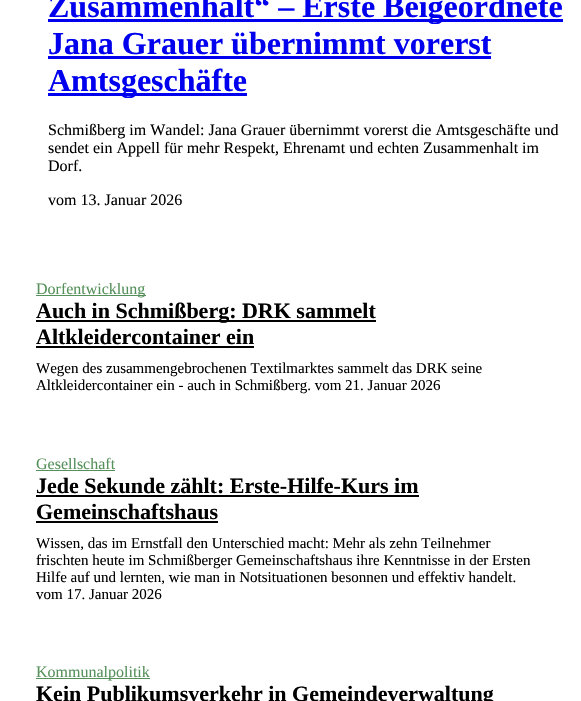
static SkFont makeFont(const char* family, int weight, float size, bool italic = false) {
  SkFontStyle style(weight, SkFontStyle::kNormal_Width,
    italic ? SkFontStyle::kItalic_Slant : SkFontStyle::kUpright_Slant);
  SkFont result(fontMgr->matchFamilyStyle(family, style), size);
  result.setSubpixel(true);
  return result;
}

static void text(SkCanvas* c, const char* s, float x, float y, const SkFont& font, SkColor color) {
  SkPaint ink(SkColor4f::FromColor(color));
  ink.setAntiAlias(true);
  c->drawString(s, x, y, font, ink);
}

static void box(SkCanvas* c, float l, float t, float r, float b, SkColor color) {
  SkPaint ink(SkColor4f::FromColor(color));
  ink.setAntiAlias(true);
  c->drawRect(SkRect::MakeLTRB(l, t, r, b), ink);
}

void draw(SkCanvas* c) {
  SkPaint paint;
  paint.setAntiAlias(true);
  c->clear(0xffffffff);
  box(c, 48, 19, 563, 22, 0xff0000ee);
  SkFont face1 = makeFont("Liberation Serif", 700, 32);
  text(c, "Zusammenhalt“ – Erste Beigeordnete", 48, 17, face1, 0xff0000ee);
  text(c, "Jana Grauer übernimmt vorerst", 48, 54, face1, 0xff0000ee);
  box(c, 48, 56, 491, 59, 0xff0000ee);
  box(c, 48, 93, 247, 96, 0xff0000ee);
  text(c, "Amtsgeschäfte", 48, 91, face1, 0xff0000ee);
  SkFont face2 = makeFont("Liberation Serif", 400, 16);
  text(c, "Schmißberg im Wandel: Jana Grauer übernimmt vorerst die Amtsgeschäfte und", 48, 135, face2, 0xff000000);
  text(c, "sendet ein Appell für mehr Respekt, Ehrenamt und echten Zusammenhalt im", 48, 153, face2, 0xff000000);
  text(c, "Dorf.", 48, 171, face2, 0xff000000);
  text(c, "vom 13. Januar 2026", 48, 205, face2, 0xff000000);
  box(c, 36, 295, 146, 296, 0xff55905a);
  text(c, "Dorfentwicklung", 36, 294, face2, 0xff55905a);
  box(c, 36, 320, 376, 322, 0xff000000);
  SkFont face3 = makeFont("Liberation Serif", 700, 22);
  text(c, "Auch in Schmißberg: DRK sammelt", 36, 318, face3, 0xff000000);
  text(c, "Altkleidercontainer ein", 36, 344, face3, 0xff000000);
  box(c, 36, 346, 254, 348, 0xff000000);
  SkFont face4 = makeFont("Liberation Serif", 400, 15);
  text(c, "Wegen des zusammengebrochenen Textilmarktes sammelt das DRK seine", 36, 373, face4, 0xff000000);
  text(c, "Altkleidercontainer ein - auch in Schmißberg. vom 21. Januar 2026", 36, 390, face4, 0xff000000);
  text(c, "Gesellschaft", 36, 469, face2, 0xff55905a);
  box(c, 36, 470, 115, 471, 0xff55905a);
  text(c, "Jede Sekunde zählt: Erste-Hilfe-Kurs im", 36, 493, face3, 0xff000000);
  box(c, 36, 495, 419, 497, 0xff000000);
  text(c, "Gemeinschaftshaus", 36, 519, face3, 0xff000000);
  box(c, 36, 521, 218, 523, 0xff000000);
  text(c, "Wissen, das im Ernstfall den Unterschied macht: Mehr als zehn Teilnehmer", 36, 548, face4, 0xff000000);
  text(c, "frischten heute im Schmißberger Gemeinschaftshaus ihre Kenntnisse in der Ersten", 36, 565, face4, 0xff000000);
  text(c, "Hilfe auf und lernten, wie man in Notsituationen besonnen und effektiv handelt.", 36, 582, face4, 0xff000000);
  text(c, "vom 17. Januar 2026", 36, 599, face4, 0xff000000);
  box(c, 36, 678, 150, 679, 0xff55905a);
  text(c, "Kommunalpolitik", 36, 677, face2, 0xff55905a);
  text(c, "Kein Publikumsverkehr in Gemeindeverwaltung", 36, 701, face3, 0xff000000);
}
